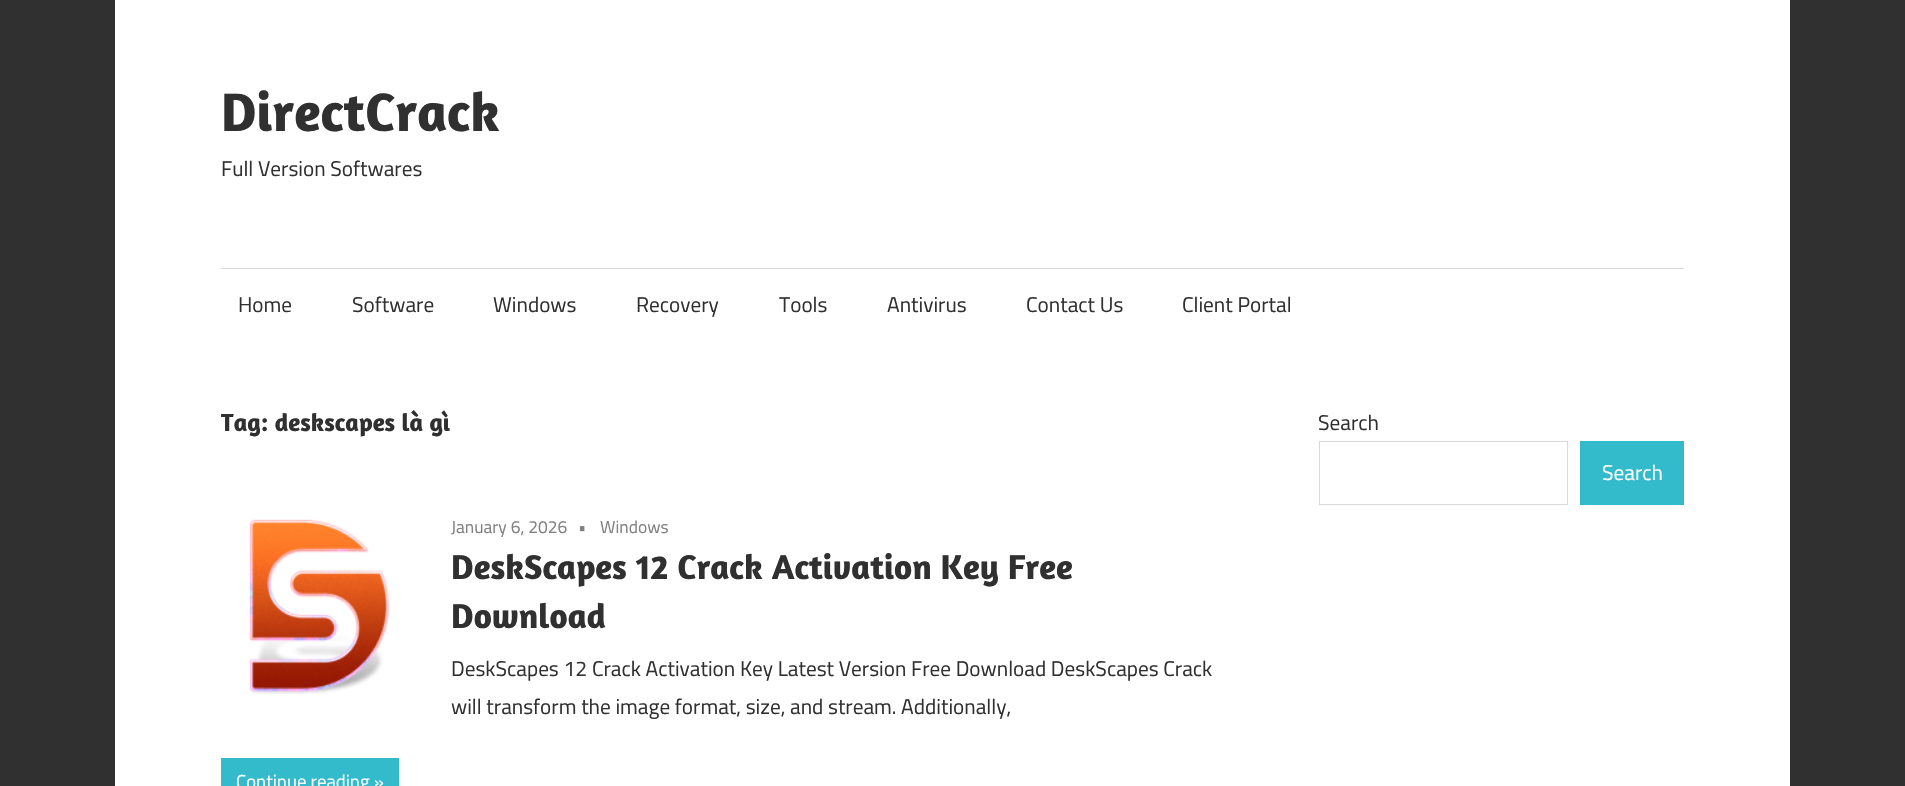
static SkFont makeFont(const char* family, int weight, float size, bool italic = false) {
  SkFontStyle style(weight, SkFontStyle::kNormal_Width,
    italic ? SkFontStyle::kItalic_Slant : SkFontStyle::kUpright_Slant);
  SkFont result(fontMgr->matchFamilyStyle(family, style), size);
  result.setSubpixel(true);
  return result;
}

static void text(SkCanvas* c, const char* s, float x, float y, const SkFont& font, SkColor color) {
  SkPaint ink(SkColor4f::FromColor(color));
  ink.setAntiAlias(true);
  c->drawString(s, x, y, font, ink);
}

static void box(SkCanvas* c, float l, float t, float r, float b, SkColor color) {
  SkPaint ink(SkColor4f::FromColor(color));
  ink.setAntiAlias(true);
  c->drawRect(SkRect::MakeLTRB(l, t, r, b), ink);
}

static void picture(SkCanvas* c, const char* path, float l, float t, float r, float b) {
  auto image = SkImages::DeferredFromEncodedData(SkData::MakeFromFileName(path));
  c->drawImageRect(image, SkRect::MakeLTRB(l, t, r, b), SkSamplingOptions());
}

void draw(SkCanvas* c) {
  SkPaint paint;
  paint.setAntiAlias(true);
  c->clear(0xff303030);
  box(c, 115, 0, 1790, 786, 0xffffffff);
  SkFont face1 = makeFont("Amaranth", 700, 55);
  text(c, "DirectCrack", 221, 131, face1, 0xff303030);
  SkFont face2 = makeFont("Titillium Web", 400, 21.25f);
  text(c, "Full Version Softwares", 221, 176, face2, 0xff303030);
  box(c, 221, 268, 1684, 269, 0xffd9d9d9);
  text(c, "Home", 238, 312, face2, 0xff303030);
  text(c, "Software", 352, 312, face2, 0xff303030);
  text(c, "Windows", 493, 312, face2, 0xff303030);
  text(c, "Recovery", 636, 312, face2, 0xff303030);
  text(c, "Tools", 779, 312, face2, 0xff303030);
  text(c, "Antivirus", 887, 312, face2, 0xff303030);
  text(c, "Contact Us", 1026, 312, face2, 0xff303030);
  text(c, "Client Portal", 1182, 312, face2, 0xff303030);
  SkFont face3 = makeFont("Amaranth", 700, 25);
  text(c, "Tag: deskscapes là gì", 221, 431, face3, 0xff303030);
  picture(c, "img_01.png", 248, 519, 390, 694);
  SkFont face4 = makeFont("Titillium Web", 400, 17.5f);
  text(c, "January 6, 2026", 451, 533, face4, 0xff808080);
  text(c, "•", 578, 533, face4, 0xff808080);
  text(c, "Windows", 600, 533, face4, 0xff808080);
  SkFont face5 = makeFont("Amaranth", 700, 35);
  text(c, "DeskScapes 12 Crack Activation Key Free", 451, 579, face5, 0xff303030);
  text(c, "Download", 451, 628, face5, 0xff303030);
  text(c, "DeskScapes 12 Crack Activation Key Latest Version Free Download DeskScapes Crack", 451, 676, face2, 0xff303030);
  text(c, "will transform the image format, size, and stream. Additionally,", 451, 714, face2, 0xff303030);
  box(c, 221, 758, 399, 786, 0xff33bbcc);
  SkFont face6 = makeFont("Titillium Web", 400, 18.75f);
  text(c, "Continue reading »", 236, 788, face6, 0xffffffff);
  text(c, "Search", 1318, 430, face2, 0xff303030);
  paint.setStyle(SkPaint::kStroke_Style);
  paint.setStrokeWidth(1);
  paint.setColor(0xffd9d9d9);
  c->drawRect(SkRect::MakeLTRB(1319.5f, 441.5f, 1567.5f, 504.5f), paint);
  box(c, 1580, 441, 1684, 505, 0xff33bbcc);
  text(c, "Search", 1602, 480, face2, 0xffffffff);
}
